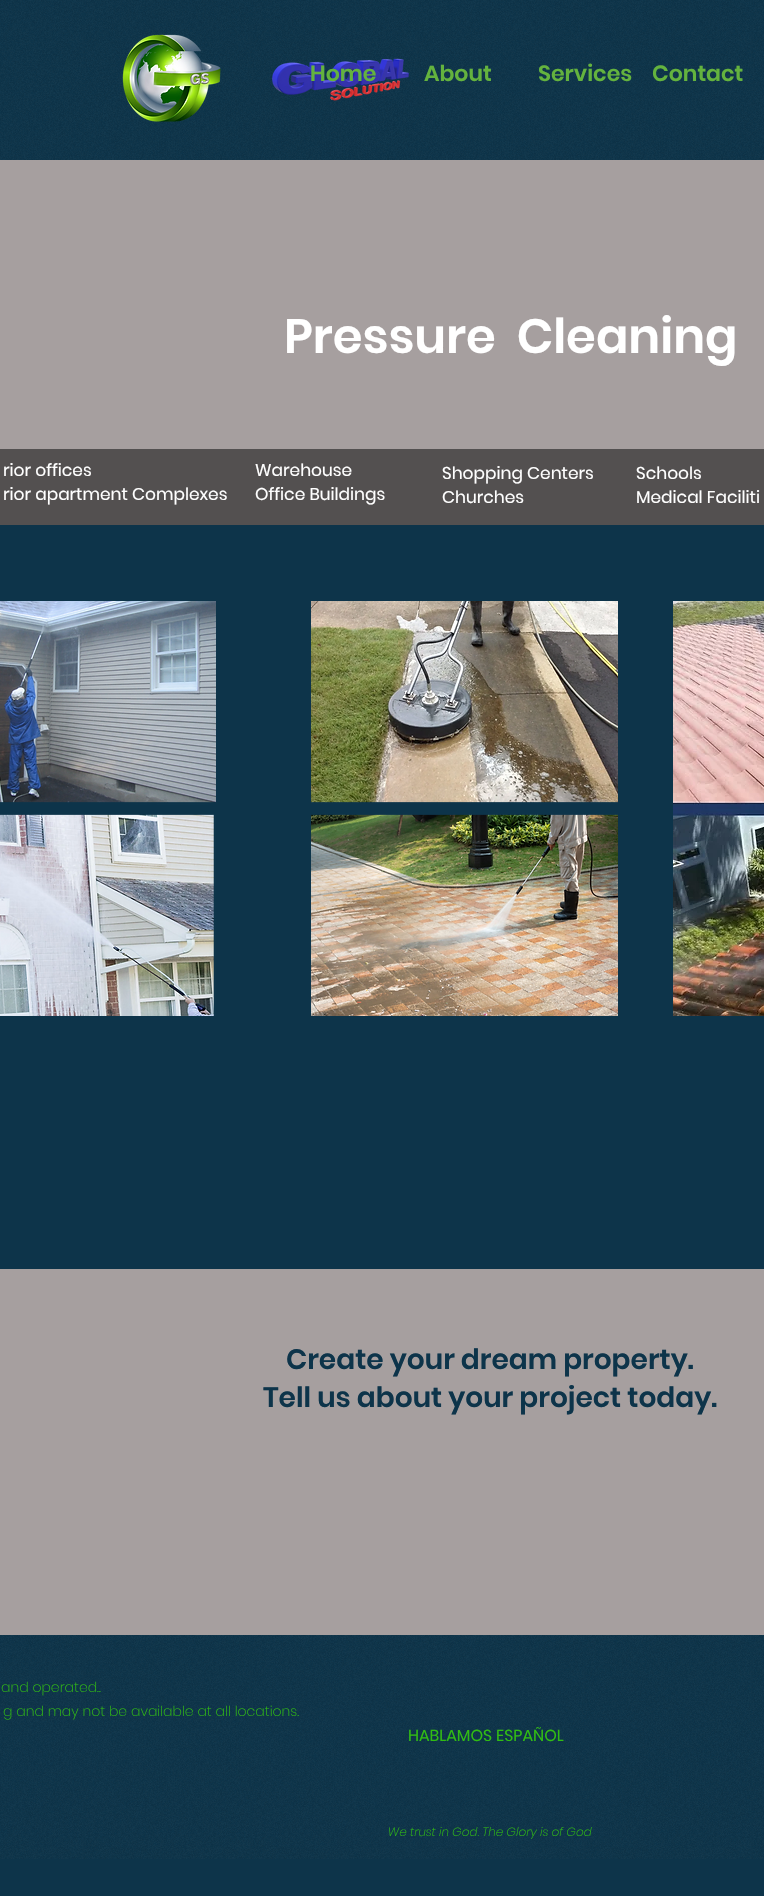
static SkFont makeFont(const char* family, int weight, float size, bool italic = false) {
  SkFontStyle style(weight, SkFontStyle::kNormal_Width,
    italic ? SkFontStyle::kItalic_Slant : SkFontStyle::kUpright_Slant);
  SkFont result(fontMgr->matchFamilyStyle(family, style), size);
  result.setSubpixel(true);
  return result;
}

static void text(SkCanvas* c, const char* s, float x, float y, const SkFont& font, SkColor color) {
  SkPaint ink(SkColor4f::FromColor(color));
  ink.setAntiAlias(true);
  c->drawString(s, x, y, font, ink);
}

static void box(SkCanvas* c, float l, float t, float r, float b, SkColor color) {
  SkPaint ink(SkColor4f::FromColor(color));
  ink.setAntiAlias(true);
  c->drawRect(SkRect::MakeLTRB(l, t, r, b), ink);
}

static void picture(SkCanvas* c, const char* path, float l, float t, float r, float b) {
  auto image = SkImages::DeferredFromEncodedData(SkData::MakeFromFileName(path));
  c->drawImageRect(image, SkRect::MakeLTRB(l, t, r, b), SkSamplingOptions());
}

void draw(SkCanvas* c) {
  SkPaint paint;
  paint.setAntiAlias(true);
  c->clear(0xff0d344a);
  picture(c, "img_01.png", 0, 0, 764, 160);
  picture(c, "img_02.png", 122, 34, 221, 122);
  picture(c, "img_03.png", 272, 58, 409, 101);
  SkFont face1 = makeFont("Poppins", 600, 22);
  text(c, "Home", 310, 81, face1, 0xff64b33e);
  text(c, "About", 424, 81, face1, 0xff64b33e);
  text(c, "Services", 538, 81, face1, 0xff64b33e);
  text(c, "Contact", 652, 81, face1, 0xff64b33e);
  box(c, 0, 160, 764, 449, 0xffa69f9f);
  SkFont face2 = makeFont("Poppins", 600, 48);
  text(c, "Pressure  Cleaning", 284, 353, face2, 0xffffffff);
  box(c, 0, 449, 764, 525, 0xff535050);
  SkFont face3 = makeFont("Poppins", 400, 17);
  text(c, "rior offices", 3, 476, face3, 0xffffffff);
  text(c, "rior apartment Complexes", 3, 500, face3, 0xffffffff);
  text(c, "Warehouse", 255, 476, face3, 0xffffffff);
  text(c, "Office Buildings", 255, 500, face3, 0xffffffff);
  text(c, "Shopping Centers", 442, 479, face3, 0xffffffff);
  text(c, "Churches", 442, 503, face3, 0xffffffff);
  text(c, "Schools", 636, 479, face3, 0xffffffff);
  text(c, "Medical Faciliti", 636, 503, face3, 0xffffffff);
  picture(c, "img_04.png", 0, 601, 216, 1016);
  picture(c, "img_05.png", 311, 601, 618, 1016);
  picture(c, "img_06.png", 673, 601, 764, 1016);
  box(c, 0, 1269, 764, 1635, 0xffa69f9f);
  SkFont face4 = makeFont("Poppins", 600, 28);
  text(c, "Create your dream property.", 286, 1369, face4, 0xff0d344a);
  text(c, "Tell us about your project today.", 263, 1407, face4, 0xff0d344a);
  picture(c, "img_07.png", 0, 1635, 764, 1859);
  SkFont face5 = makeFont("Poppins", 200, 14);
  text(c, "and operated..", 1, 1692, face5, 0xff31bd13);
  text(c, "g and may not be available at all locations.", 3, 1716, face5, 0xff31bd13);
  SkFont face6 = makeFont("Poppins", 400, 16);
  text(c, "HABLAMOS ESPAÑOL", 408, 1741, face6, 0xff31bd13);
  SkFont face7 = makeFont("Poppins", 200, 12, true);
  text(c, "We trust in God. The Glory is of God", 388, 1836, face7, 0xff31bd13);
}
